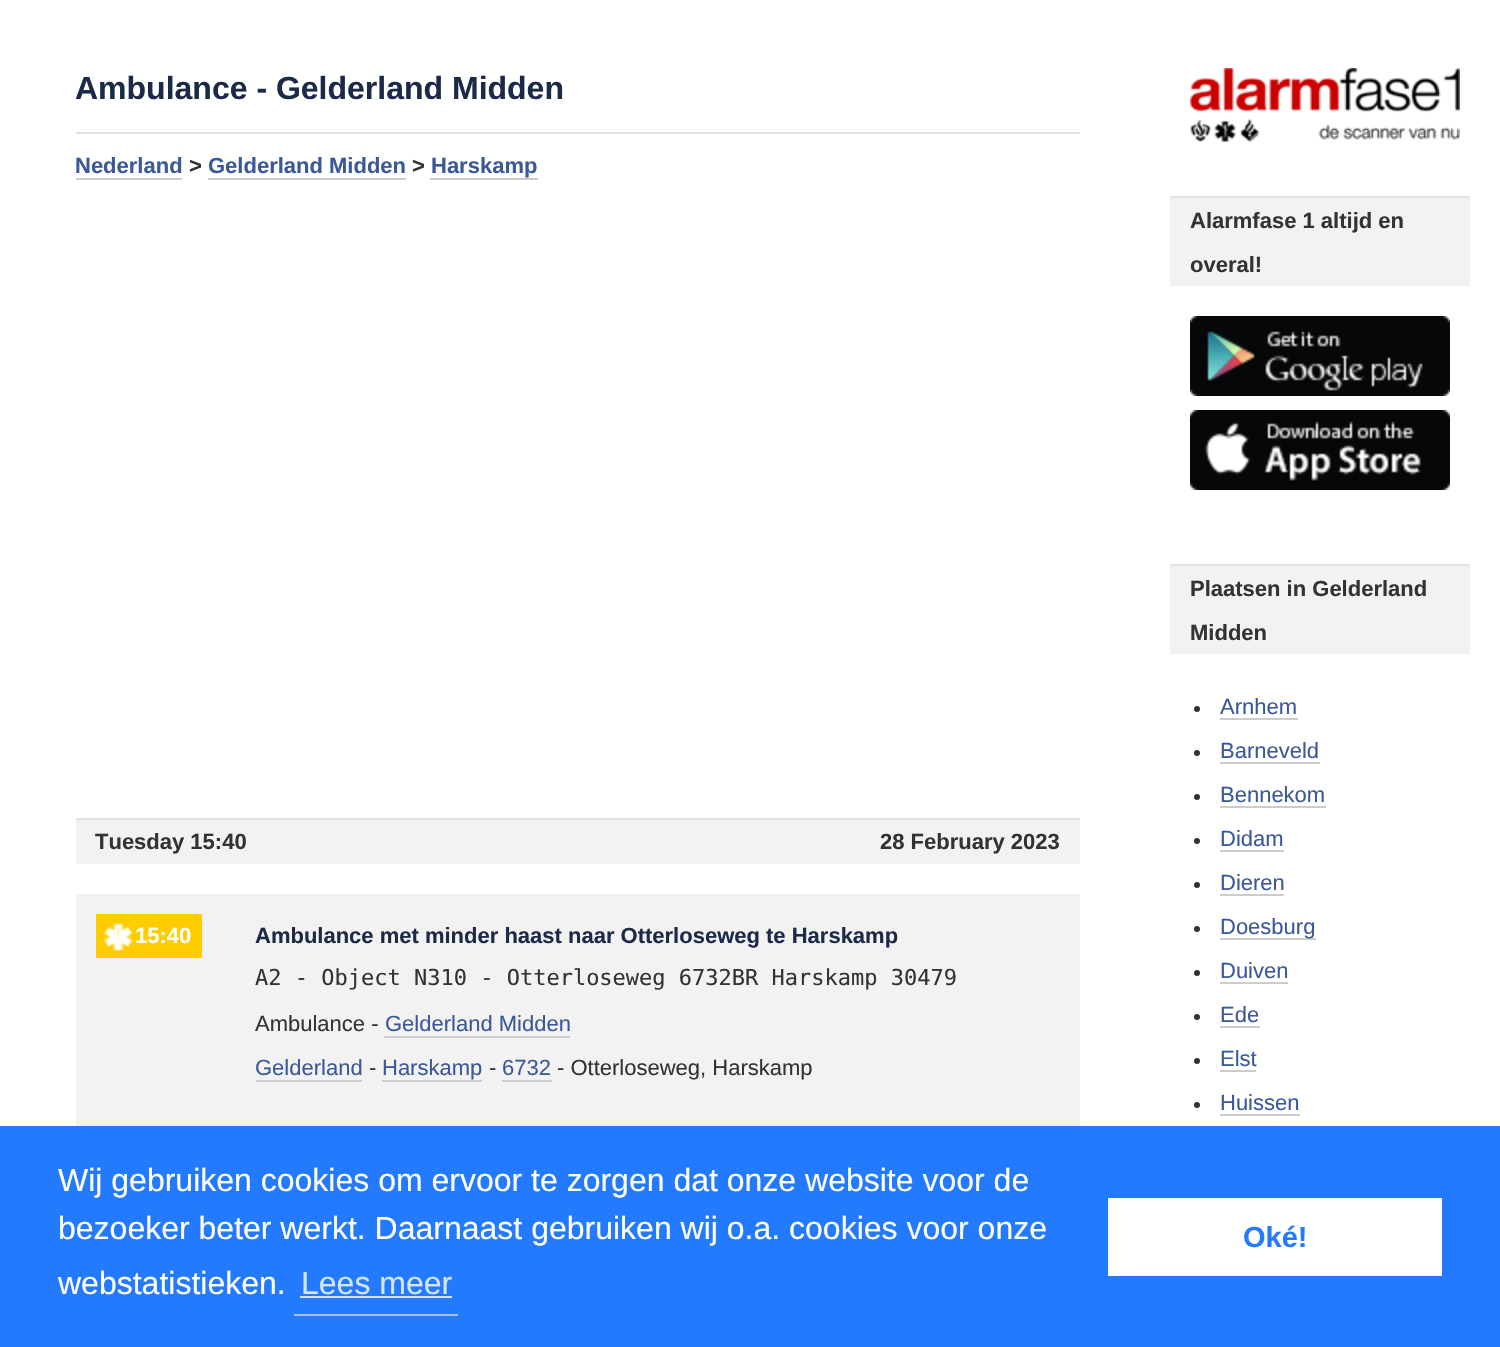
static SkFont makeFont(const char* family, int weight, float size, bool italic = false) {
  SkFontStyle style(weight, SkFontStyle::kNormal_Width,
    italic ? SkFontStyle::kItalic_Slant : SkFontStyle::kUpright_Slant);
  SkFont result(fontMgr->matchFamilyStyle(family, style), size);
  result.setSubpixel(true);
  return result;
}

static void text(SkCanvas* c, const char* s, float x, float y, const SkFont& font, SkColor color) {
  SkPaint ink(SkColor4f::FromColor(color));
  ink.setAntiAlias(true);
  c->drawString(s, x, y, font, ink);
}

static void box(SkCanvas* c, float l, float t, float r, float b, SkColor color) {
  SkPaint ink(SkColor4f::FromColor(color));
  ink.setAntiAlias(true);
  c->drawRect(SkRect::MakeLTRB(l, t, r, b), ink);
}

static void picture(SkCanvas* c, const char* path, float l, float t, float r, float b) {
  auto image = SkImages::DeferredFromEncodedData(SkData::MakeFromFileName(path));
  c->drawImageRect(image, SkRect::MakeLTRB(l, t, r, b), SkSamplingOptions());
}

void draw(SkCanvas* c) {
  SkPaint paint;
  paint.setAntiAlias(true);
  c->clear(0xffffffff);
  SkFont face1 = makeFont("Liberation Sans", 700, 32);
  text(c, "Ambulance - Gelderland Midden", 75, 99, face1, 0xff1c2a47);
  box(c, 76, 132, 1080, 134, 0xffe2e2e2);
  SkFont face2 = makeFont("Liberation Sans", 700, 22);
  text(c, "Nederland", 75, 173, face2, 0xff3b5998);
  box(c, 76, 178, 182, 180, 0xffcccccc);
  text(c, ">", 189, 173, face2, 0xff333333);
  text(c, "Gelderland Midden", 208, 173, face2, 0xff3b5998);
  box(c, 208, 178, 406, 180, 0xffcccccc);
  text(c, ">", 412, 173, face2, 0xff333333);
  text(c, "Harskamp", 431, 173, face2, 0xff3b5998);
  box(c, 430, 178, 538, 180, 0xffcccccc);
  box(c, 76, 820, 1080, 864, 0xfff2f2f2);
  box(c, 76, 818, 1080, 820, 0xffe2e2e2);
  text(c, "Tuesday 15:40", 95, 849, face2, 0xff333333);
  text(c, "28 February 2023", 880, 849, face2, 0xff333333);
  box(c, 76, 894, 1080, 1126, 0xfff2f2f2);
  box(c, 96, 914, 202, 958, 0xffffcc00);
  picture(c, "img_01.png", 103, 923, 133, 951);
  text(c, "15:40", 135, 943, face2, 0xffffffff);
  text(c, "Ambulance met minder haast naar Otterloseweg te Harskamp", 255, 943, face2, 0xff1c2a47);
  SkFont face3 = makeFont("DejaVu Sans Mono", 400, 22);
  text(c, "A2 - Object N310 - Otterloseweg 6732BR Harskamp 30479", 255, 985, face3, 0xff333333);
  SkFont face4 = makeFont("Liberation Sans", 400, 22);
  text(c, "Ambulance -", 255, 1031, face4, 0xff333333);
  text(c, "Gelderland Midden", 385, 1031, face4, 0xff3b5998);
  box(c, 384, 1036, 570, 1038, 0xffcccccc);
  text(c, "Gelderland", 255, 1075, face4, 0xff3b5998);
  box(c, 256, 1080, 362, 1082, 0xffcccccc);
  text(c, "-", 369, 1075, face4, 0xff333333);
  text(c, "Harskamp", 382, 1075, face4, 0xff3b5998);
  box(c, 382, 1080, 482, 1082, 0xffcccccc);
  text(c, "-", 489, 1075, face4, 0xff333333);
  text(c, "6732", 502, 1075, face4, 0xff3b5998);
  box(c, 502, 1080, 552, 1082, 0xffcccccc);
  text(c, "- Otterloseweg, Harskamp", 557, 1075, face4, 0xff333333);
  picture(c, "img_02.png", 1190, 68, 1460, 142);
  box(c, 1170, 198, 1470, 286, 0xfff2f2f2);
  box(c, 1170, 196, 1470, 198, 0xffe2e2e2);
  text(c, "Alarmfase 1 altijd en", 1190, 228, face2, 0xff333333);
  text(c, "overal!", 1190, 272, face2, 0xff333333);
  picture(c, "img_03.png", 1190, 316, 1450, 396);
  picture(c, "img_04.png", 1190, 410, 1450, 490);
  box(c, 1170, 566, 1470, 654, 0xfff2f2f2);
  box(c, 1170, 564, 1470, 566, 0xffe2e2e2);
  text(c, "Plaatsen in Gelderland", 1190, 596, face2, 0xff333333);
  text(c, "Midden", 1190, 640, face2, 0xff333333);
  paint.setColor(0xff333333);
  c->drawCircle(1197, 709, 3, paint);
  text(c, "Arnhem", 1220, 714, face4, 0xff3b5998);
  box(c, 1220, 718, 1298, 720, 0xffcccccc);
  c->drawCircle(1197, 753, 3, paint);
  text(c, "Barneveld", 1220, 758, face4, 0xff3b5998);
  box(c, 1220, 762, 1320, 764, 0xffcccccc);
  c->drawCircle(1197, 797, 3, paint);
  text(c, "Bennekom", 1220, 802, face4, 0xff3b5998);
  box(c, 1220, 806, 1326, 808, 0xffcccccc);
  c->drawCircle(1197, 841, 3, paint);
  text(c, "Didam", 1220, 846, face4, 0xff3b5998);
  box(c, 1220, 850, 1284, 852, 0xffcccccc);
  c->drawCircle(1197, 885, 3, paint);
  text(c, "Dieren", 1220, 890, face4, 0xff3b5998);
  box(c, 1220, 894, 1284, 896, 0xffcccccc);
  c->drawCircle(1197, 929, 3, paint);
  box(c, 1220, 938, 1316, 940, 0xffcccccc);
  text(c, "Doesburg", 1220, 934, face4, 0xff3b5998);
  c->drawCircle(1197, 973, 3, paint);
  text(c, "Duiven", 1220, 978, face4, 0xff3b5998);
  box(c, 1220, 982, 1288, 984, 0xffcccccc);
  c->drawCircle(1197, 1017, 3, paint);
  text(c, "Ede", 1220, 1022, face4, 0xff3b5998);
  box(c, 1220, 1026, 1260, 1028, 0xffcccccc);
  c->drawCircle(1197, 1061, 3, paint);
  text(c, "Elst", 1220, 1066, face4, 0xff3b5998);
  box(c, 1220, 1070, 1256, 1072, 0xffcccccc);
  c->drawCircle(1197, 1105, 3, paint);
  text(c, "Huissen", 1220, 1110, face4, 0xff3b5998);
  box(c, 1220, 1114, 1300, 1116, 0xffcccccc);
  box(c, 0, 1126, 1500, 1347, 0xff237afc);
  SkFont face5 = makeFont("Liberation Sans", 400, 32);
  text(c, "Wij gebruiken cookies om ervoor te zorgen dat onze website voor de", 58, 1191, face5, 0xffffffff);
  text(c, "bezoeker beter werkt. Daarnaast gebruiken wij o.a. cookies voor onze", 58, 1239, face5, 0xffffffff);
  text(c, "webstatistieken.", 58, 1294, face5, 0xffffffff);
  box(c, 294, 1314, 458, 1316, 0xffaabcd6);
  text(c, "Lees meer", 301, 1294, face5, 0xffd3e4fe);
  box(c, 300, 1296, 452, 1298, 0xffd3e4fe);
  box(c, 1108, 1198, 1442, 1276, 0xffffffff);
  SkFont face6 = makeFont("Liberation Sans", 700, 29);
  text(c, "Oké!", 1243, 1247, face6, 0xff237afc);
}
